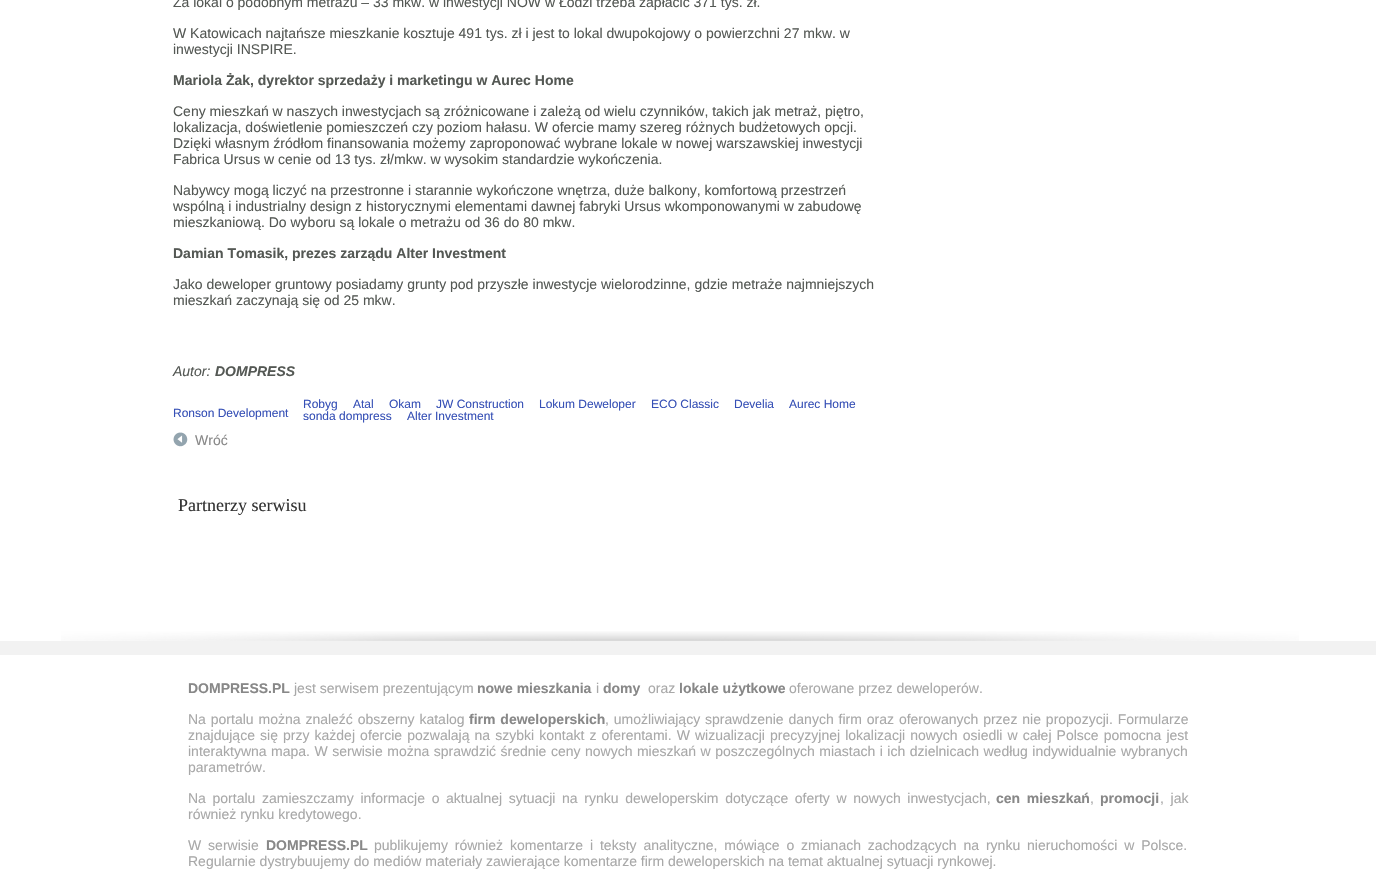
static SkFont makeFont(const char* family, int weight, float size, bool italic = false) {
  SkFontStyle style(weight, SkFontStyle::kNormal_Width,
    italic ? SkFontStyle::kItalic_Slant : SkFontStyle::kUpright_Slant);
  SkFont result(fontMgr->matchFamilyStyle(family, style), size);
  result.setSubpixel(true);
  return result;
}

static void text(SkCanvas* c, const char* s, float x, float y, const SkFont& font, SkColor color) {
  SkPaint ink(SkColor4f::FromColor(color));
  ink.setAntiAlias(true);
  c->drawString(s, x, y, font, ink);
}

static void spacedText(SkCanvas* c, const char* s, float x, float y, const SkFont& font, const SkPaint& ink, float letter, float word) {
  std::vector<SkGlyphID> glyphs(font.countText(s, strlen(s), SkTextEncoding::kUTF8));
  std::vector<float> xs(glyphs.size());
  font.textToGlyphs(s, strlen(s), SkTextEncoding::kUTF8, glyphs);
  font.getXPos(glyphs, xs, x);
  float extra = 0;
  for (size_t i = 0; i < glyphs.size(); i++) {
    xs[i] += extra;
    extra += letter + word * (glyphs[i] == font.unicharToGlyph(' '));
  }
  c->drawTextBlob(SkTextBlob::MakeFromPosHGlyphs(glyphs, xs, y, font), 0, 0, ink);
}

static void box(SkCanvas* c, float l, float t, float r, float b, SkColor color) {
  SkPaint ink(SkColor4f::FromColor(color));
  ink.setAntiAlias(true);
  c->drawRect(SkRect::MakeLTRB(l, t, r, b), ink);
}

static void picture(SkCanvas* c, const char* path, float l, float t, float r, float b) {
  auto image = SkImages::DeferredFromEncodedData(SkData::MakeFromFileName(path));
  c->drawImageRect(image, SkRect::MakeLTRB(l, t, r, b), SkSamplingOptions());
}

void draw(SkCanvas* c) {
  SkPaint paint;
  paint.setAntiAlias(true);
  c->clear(0xffffffff);
  SkFont face1 = makeFont("Liberation Sans", 400, 14);
  text(c, "Za lokal o podobnym metrażu – 33 mkw. w inwestycji NOW w Łodzi trzeba zapłacić 371 tys. zł.", 173, 7, face1, 0xff545854);
  text(c, "W Katowicach najtańsze mieszkanie kosztuje 491 tys. zł i jest to lokal dwupokojowy o powierzchni 27 mkw. w", 173, 38, face1, 0xff545854);
  text(c, "inwestycji INSPIRE.", 173, 54, face1, 0xff545854);
  SkFont face2 = makeFont("Liberation Sans", 700, 14);
  text(c, "Mariola Żak, dyrektor sprzedaży i marketingu w Aurec Home", 173, 85, face2, 0xff545854);
  text(c, "Ceny mieszkań w naszych inwestycjach są zróżnicowane i zależą od wielu czynników, takich jak metraż, piętro,", 173, 116, face1, 0xff545854);
  text(c, "lokalizacja, doświetlenie pomieszczeń czy poziom hałasu. W ofercie mamy szereg różnych budżetowych opcji.", 173, 132, face1, 0xff545854);
  text(c, "Dzięki własnym źródłom finansowania możemy zaproponować wybrane lokale w nowej warszawskiej inwestycji", 173, 148, face1, 0xff545854);
  text(c, "Fabrica Ursus w cenie od 13 tys. zł/mkw. w wysokim standardzie wykończenia.", 173, 164, face1, 0xff545854);
  text(c, "Nabywcy mogą liczyć na przestronne i starannie wykończone wnętrza, duże balkony, komfortową przestrzeń", 173, 195, face1, 0xff545854);
  text(c, "wspólną i industrialny design z historycznymi elementami dawnej fabryki Ursus wkomponowanymi w zabudowę", 173, 211, face1, 0xff545854);
  text(c, "mieszkaniową. Do wyboru są lokale o metrażu od 36 do 80 mkw.", 173, 227, face1, 0xff545854);
  text(c, "Damian Tomasik, prezes zarządu Alter Investment", 173, 258, face2, 0xff545854);
  text(c, "Jako deweloper gruntowy posiadamy grunty pod przyszłe inwestycje wielorodzinne, gdzie metraże najmniejszych", 173, 289, face1, 0xff545854);
  text(c, "mieszkań zaczynają się od 25 mkw.", 173, 305, face1, 0xff545854);
  SkFont face3 = makeFont("Liberation Sans", 400, 14, true);
  text(c, "Autor:", 173, 376, face3, 0xff545854);
  SkFont face4 = makeFont("Liberation Sans", 700, 14, true);
  text(c, "DOMPRESS", 215, 376, face4, 0xff545854);
  SkFont face5 = makeFont("Liberation Sans", 400, 12);
  text(c, "Robyg", 303, 408, face5, 0xff3650b6);
  text(c, "Atal", 353, 408, face5, 0xff3650b6);
  text(c, "Okam", 389, 408, face5, 0xff3650b6);
  text(c, "JW Construction", 436, 408, face5, 0xff3650b6);
  text(c, "Lokum Deweloper", 539, 408, face5, 0xff3650b6);
  text(c, "ECO Classic", 651, 408, face5, 0xff3650b6);
  text(c, "Develia", 734, 408, face5, 0xff3650b6);
  text(c, "Aurec Home", 789, 408, face5, 0xff3650b6);
  text(c, "Ronson Development", 173, 417, face5, 0xff3650b6);
  text(c, "sonda dompress", 303, 420, face5, 0xff3650b6);
  text(c, "Alter Investment", 407, 420, face5, 0xff3650b6);
  picture(c, "img_01.png", 173, 432, 188, 447);
  text(c, "Wróć", 195, 445, face1, 0xff888888);
  SkFont face6 = makeFont("Liberation Serif", 400, 18);
  text(c, "Partnerzy serwisu", 178, 511, face6, 0xff333333);
  picture(c, "img_02.png", 61, 631, 1299, 641);
  box(c, 0, 641, 1376, 655, 0xfff2f2f2);
  text(c, "DOMPRESS.PL", 188, 693, face2, 0xff888888);
  text(c, "jest serwisem prezentującym", 294, 693, face1, 0xffa8a8a8);
  text(c, "nowe mieszkania", 477, 693, face2, 0xff888888);
  text(c, "i", 596, 693, face1, 0xffa8a8a8);
  text(c, "domy", 603, 693, face2, 0xff888888);
  text(c, "oraz", 648, 693, face1, 0xffa8a8a8);
  text(c, "lokale użytkowe", 679, 693, face2, 0xff888888);
  text(c, "oferowane przez deweloperów.", 789, 693, face1, 0xffa8a8a8);
  paint.setColor(0xffa8a8a8);
  spacedText(c, "Na portalu można znaleźć obszerny katalog", 188, 724, face1, paint, 0, 1);
  paint.setColor(0xff888888);
  spacedText(c, "firm deweloperskich", 469, 724, face2, paint, 0, 1);
  paint.setColor(0xffa8a8a8);
  spacedText(c, ", umożliwiający sprawdzenie danych firm oraz oferowanych przez nie propozycji. Formularze", 605, 724, face1, paint, 0, 1);
  spacedText(c, "znajdujące się przy każdej ofercie pozwalają na szybki kontakt z oferentami. W wizualizacji precyzyjnej lokalizacji nowych osiedli w całej Polsce pomocna jest", 188, 740, face1, paint, 0, 1.2f);
  spacedText(c, "interaktywna mapa. W serwisie można sprawdzić średnie ceny nowych mieszkań w poszczególnych miastach i ich dzielnicach według indywidualnie wybranych", 188, 756, face1, paint, 0, 0.6f);
  text(c, "parametrów.", 188, 772, face1, 0xffa8a8a8);
  spacedText(c, "Na portalu zamieszczamy informacje o aktualnej sytuacji na rynku deweloperskim dotyczące oferty w nowych inwestycjach,", 188, 803, face1, paint, 0, 2.75f);
  paint.setColor(0xff888888);
  spacedText(c, "cen mieszkań", 996, 803, face2, paint, 0, 2.75f);
  text(c, ",", 1090, 803, face1, 0xffa8a8a8);
  text(c, "promocji", 1100, 803, face2, 0xff888888);
  paint.setColor(0xffa8a8a8);
  spacedText(c, ", jak", 1160, 803, face1, paint, 0, 2.75f);
  text(c, "również rynku kredytowego.", 188, 819, face1, 0xffa8a8a8);
  spacedText(c, "W serwisie", 188, 850, face1, paint, 0, 3);
  text(c, "DOMPRESS.PL", 266, 850, face2, 0xff888888);
  spacedText(c, "publikujemy również komentarze i teksty analityczne, mówiące o zmianach zachodzących na rynku nieruchomości w Polsce.", 374, 850, face1, paint, 0, 3);
  text(c, "Regularnie dystrybuujemy do mediów materiały zawierające komentarze firm deweloperskich na temat aktualnej sytuacji rynkowej.", 188, 866, face1, 0xffa8a8a8);
}
